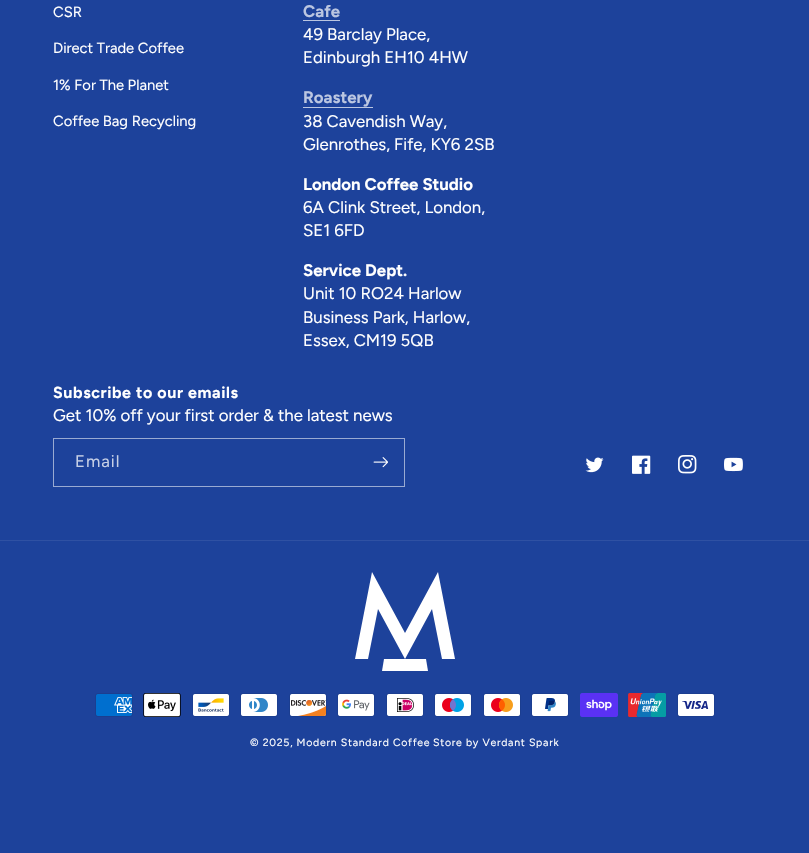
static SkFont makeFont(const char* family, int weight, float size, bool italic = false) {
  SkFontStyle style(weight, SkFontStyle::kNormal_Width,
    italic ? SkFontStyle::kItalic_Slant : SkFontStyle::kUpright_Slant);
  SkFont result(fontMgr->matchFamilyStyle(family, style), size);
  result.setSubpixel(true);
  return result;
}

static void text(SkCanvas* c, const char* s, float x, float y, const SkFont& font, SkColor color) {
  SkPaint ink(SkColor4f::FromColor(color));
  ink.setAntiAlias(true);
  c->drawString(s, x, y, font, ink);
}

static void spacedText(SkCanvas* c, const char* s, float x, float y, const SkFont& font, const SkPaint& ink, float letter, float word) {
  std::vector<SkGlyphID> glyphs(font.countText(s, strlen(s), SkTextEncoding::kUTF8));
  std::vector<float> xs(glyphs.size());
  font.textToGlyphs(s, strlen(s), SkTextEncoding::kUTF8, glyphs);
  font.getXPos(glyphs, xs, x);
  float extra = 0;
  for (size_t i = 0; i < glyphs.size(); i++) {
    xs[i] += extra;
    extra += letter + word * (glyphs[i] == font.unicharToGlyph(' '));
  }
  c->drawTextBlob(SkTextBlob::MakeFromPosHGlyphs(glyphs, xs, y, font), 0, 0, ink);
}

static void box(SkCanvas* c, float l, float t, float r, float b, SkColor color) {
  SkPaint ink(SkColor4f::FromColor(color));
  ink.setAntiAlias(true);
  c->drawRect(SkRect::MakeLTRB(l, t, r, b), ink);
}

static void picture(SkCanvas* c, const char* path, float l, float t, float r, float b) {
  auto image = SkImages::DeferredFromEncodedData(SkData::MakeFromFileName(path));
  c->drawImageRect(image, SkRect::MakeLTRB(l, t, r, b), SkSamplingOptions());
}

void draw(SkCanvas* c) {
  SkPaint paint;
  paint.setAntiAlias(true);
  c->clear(0xff1d429b);
  SkFont face1 = makeFont("Figtree", 300, 14.75f);
  text(c, "CSR", 53, 17, face1, 0xffffffff);
  text(c, "Direct Trade Coffee", 53, 53, face1, 0xffffffff);
  text(c, "1% For The Planet", 53, 90, face1, 0xffffffff);
  text(c, "Coffee Bag Recycling", 53, 126, face1, 0xffffffff);
  SkFont face2 = makeFont("Figtree", 700, 16.8f);
  text(c, "Cafe", 303, 17, face2, 0xffbbc6e1);
  box(c, 303, 20, 340, 21, 0xffbbc6e1);
  SkFont face3 = makeFont("Figtree", 300, 16.8f);
  text(c, "49 Barclay Place,", 303, 40, face3, 0xffffffff);
  text(c, "Edinburgh EH10 4HW", 303, 63, face3, 0xffffffff);
  text(c, "Roastery", 303, 103, face2, 0xffbbc6e1);
  box(c, 303, 107, 373, 108, 0xffbbc6e1);
  text(c, "38 Cavendish Way,", 303, 127, face3, 0xffffffff);
  text(c, "Glenrothes, Fife, KY6 2SB", 303, 150, face3, 0xffffffff);
  text(c, "London Coffee Studio", 303, 190, face2, 0xffffffff);
  text(c, "6A Clink Street, London,", 303, 213, face3, 0xffffffff);
  text(c, "SE1 6FD", 303, 236, face3, 0xffffffff);
  text(c, "Service Dept.", 303, 276, face2, 0xffffffff);
  text(c, "Unit 10 RO24 Harlow", 303, 299, face3, 0xffffffff);
  text(c, "Business Park, Harlow,", 303, 323, face3, 0xffffffff);
  text(c, "Essex, CM19 5QB", 303, 346, face3, 0xffffffff);
  SkFont face4 = makeFont("Figtree", 700, 16);
  paint.setColor(0xffffffff);
  spacedText(c, "Subscribe to our emails", 53, 398, face4, paint, 0.6f, 0);
  text(c, "Get 10% off your first order & the latest news", 53, 421, face3, 0xffffffff);
  paint.setStyle(SkPaint::kStroke_Style);
  paint.setStrokeWidth(1);
  paint.setColor(0xff99aad2);
  c->drawRect(SkRect::MakeLTRB(53.5f, 438.5f, 404.5f, 486.5f), paint);
  paint.setStyle(SkPaint::kFill_Style);
  paint.setColor(0xffc7d0e6);
  spacedText(c, "Email", 75, 467, face3, paint, 1, 0);
  picture(c, "img_01.png", 373, 457, 388, 468);
  picture(c, "img_02.png", 585, 457, 604, 473);
  picture(c, "img_03.png", 632, 455, 651, 474);
  picture(c, "img_04.png", 678, 455, 697, 474);
  picture(c, "img_05.png", 724, 457, 743, 472);
  box(c, 0, 540, 809, 541, 0xff2f51a3);
  paint.setColor(0xffffffff);
  c->drawPath(SkPathBuilder().moveTo(405, 659).lineTo(432, 609).lineTo(442, 659).lineTo(455, 659).lineTo(438, 572).lineTo(405, 633).lineTo(372, 572).lineTo(355, 659).lineTo(368, 659).lineTo(378, 609).close().detach(), paint);
  c->drawPath(SkPathBuilder().moveTo(384, 659).lineTo(426, 659).lineTo(428, 671).lineTo(382, 671).close().detach(), paint);
  picture(c, "img_06.png", 95, 693, 133, 717);
  picture(c, "img_07.png", 143, 693, 181, 717);
  picture(c, "img_08.png", 192, 693, 230, 717);
  picture(c, "img_09.png", 240, 693, 278, 717);
  picture(c, "img_10.png", 289, 693, 327, 717);
  picture(c, "img_11.png", 337, 693, 375, 717);
  picture(c, "img_12.png", 386, 693, 424, 717);
  picture(c, "img_13.png", 434, 693, 472, 717);
  picture(c, "img_14.png", 483, 693, 521, 717);
  picture(c, "img_15.png", 531, 693, 569, 717);
  picture(c, "img_16.png", 580, 693, 618, 717);
  picture(c, "img_17.png", 628, 693, 666, 717);
  picture(c, "img_18.png", 677, 693, 715, 717);
  SkFont face5 = makeFont("Figtree", 300, 10.5f);
  spacedText(c, "© 2025, Modern Standard Coffee", 250, 746, face5, paint, 0.75f, 0);
  spacedText(c, "Store by Verdant Spark", 433, 746, face5, paint, 0.75f, 0);
}
